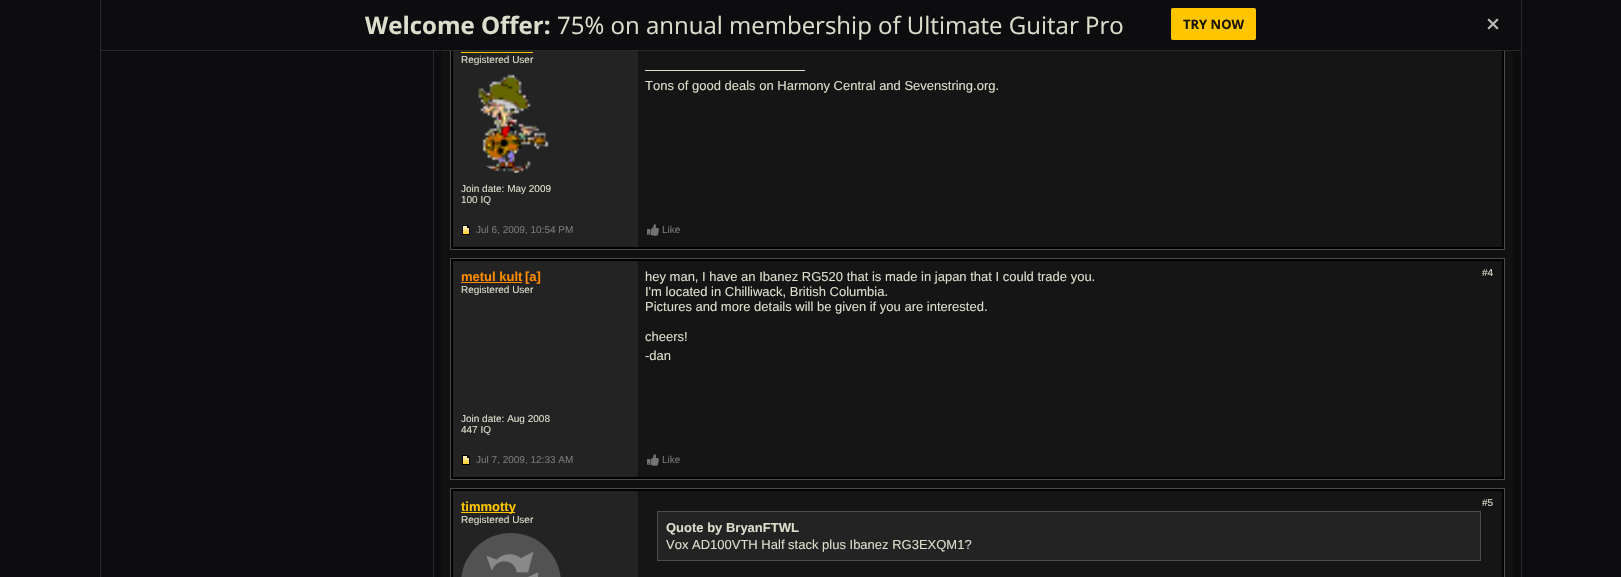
static SkFont makeFont(const char* family, int weight, float size, bool italic = false) {
  SkFontStyle style(weight, SkFontStyle::kNormal_Width,
    italic ? SkFontStyle::kItalic_Slant : SkFontStyle::kUpright_Slant);
  SkFont result(fontMgr->matchFamilyStyle(family, style), size);
  result.setSubpixel(true);
  return result;
}

static void text(SkCanvas* c, const char* s, float x, float y, const SkFont& font, SkColor color) {
  SkPaint ink(SkColor4f::FromColor(color));
  ink.setAntiAlias(true);
  c->drawString(s, x, y, font, ink);
}

static void box(SkCanvas* c, float l, float t, float r, float b, SkColor color) {
  SkPaint ink(SkColor4f::FromColor(color));
  ink.setAntiAlias(true);
  c->drawRect(SkRect::MakeLTRB(l, t, r, b), ink);
}

static void roundBox(SkCanvas* c, float l, float t, float r, float b, float radius, SkColor color) {
  SkPaint ink(SkColor4f::FromColor(color));
  ink.setAntiAlias(true);
  c->drawRoundRect(SkRect::MakeLTRB(l, t, r, b), radius, radius, ink);
}

static void picture(SkCanvas* c, const char* path, float l, float t, float r, float b) {
  auto image = SkImages::DeferredFromEncodedData(SkData::MakeFromFileName(path));
  c->drawImageRect(image, SkRect::MakeLTRB(l, t, r, b), SkSamplingOptions());
}

void draw(SkCanvas* c) {
  SkPaint paint;
  paint.setAntiAlias(true);
  c->clear(0xff0d0d10);
  box(c, 100, 0, 101, 577, 0xff2a2a2d);
  box(c, 442, 51, 1513, 577, 0xff111111);
  box(c, 638, 51, 1502, 247, 0xff151515);
  paint.setStyle(SkPaint::kStroke_Style);
  paint.setStrokeWidth(2);
  paint.setColor(0xff000000);
  c->drawRect(SkRect::MakeLTRB(452, 30, 1503, 248), paint);
  paint.setStrokeWidth(1);
  paint.setColor(0xff4f4c46);
  c->drawRect(SkRect::MakeLTRB(450.5f, 28.5f, 1504.5f, 249.5f), paint);
  box(c, 450, 28, 1505, 50, 0xff0d0d10);
  box(c, 101, 50, 1521, 51, 0xff2a2a2d);
  SkFont face1 = makeFont("Open Sans", 700, 24);
  text(c, "Welcome Offer:", 365, 34, face1, 0xffddddcc);
  SkFont face2 = makeFont("Open Sans", 400, 24);
  text(c, "75% on annual membership of Ultimate Guitar Pro", 557, 34, face2, 0xffddddcc);
  roundBox(c, 1171, 8, 1256, 40, 2, 0xffffc600);
  SkFont face3 = makeFont("Open Sans", 700, 13);
  text(c, "TRY NOW", 1183, 29, face3, 0xff1a1400);
  picture(c, "img_01.png", 1487, 18, 1499, 30);
  box(c, 1521, 0, 1522, 577, 0xff2a2a2d);
  box(c, 433, 51, 434, 577, 0xff2a2a2d);
  box(c, 453, 51, 638, 247, 0xff232323);
  box(c, 461, 52, 533, 53, 0xffffc600);
  SkFont face4 = makeFont("Liberation Sans", 400, 10);
  text(c, "Registered User", 461, 63, face4, 0xffddddcc);
  picture(c, "img_02.png", 478, 74, 549, 173);
  text(c, "Join date: May 2009", 461, 192, face4, 0xffddddcc);
  text(c, "100 IQ", 461, 203, face4, 0xffddddcc);
  box(c, 645, 70, 805, 71, 0xffddddcc);
  SkFont face5 = makeFont("Liberation Sans", 400, 13);
  text(c, "Tons of good deals on Harmony Central and Sevenstring.org.", 645, 90, face5, 0xffddddcc);
  picture(c, "img_03.png", 462, 225, 470, 235);
  text(c, "Jul 6, 2009, 10:54 PM", 476, 233, face4, 0xff777777);
  picture(c, "img_04.png", 647, 224, 659, 236);
  text(c, "Like", 662, 233, face4, 0xff777777);
  box(c, 638, 261, 1502, 477, 0xff151515);
  paint.setStrokeWidth(2);
  paint.setColor(0xff000000);
  c->drawRect(SkRect::MakeLTRB(452, 260, 1503, 478), paint);
  paint.setStrokeWidth(1);
  paint.setColor(0xff4f4c46);
  c->drawRect(SkRect::MakeLTRB(450.5f, 258.5f, 1504.5f, 479.5f), paint);
  box(c, 453, 261, 638, 477, 0xff232323);
  SkFont face6 = makeFont("Liberation Sans", 700, 13);
  text(c, "metul kult", 461, 281, face6, 0xffff8c00);
  box(c, 461, 282, 522, 283, 0xffff8c00);
  text(c, "[a]", 525, 281, face6, 0xffff8c00);
  text(c, "Registered User", 461, 293, face4, 0xffddddcc);
  text(c, "Join date: Aug 2008", 461, 422, face4, 0xffddddcc);
  text(c, "447 IQ", 461, 433, face4, 0xffddddcc);
  text(c, "hey man, I have an Ibanez RG520 that is made in japan that I could trade you.", 645, 281, face5, 0xffddddcc);
  text(c, "I'm located in Chilliwack, British Columbia.", 645, 296, face5, 0xffddddcc);
  text(c, "Pictures and more details will be given if you are interested.", 645, 311, face5, 0xffddddcc);
  text(c, "cheers!", 645, 341, face5, 0xffddddcc);
  text(c, "-dan", 645, 360, face5, 0xffddddcc);
  text(c, "#4", 1482, 276, face4, 0xffddddcc);
  picture(c, "img_03.png", 462, 455, 470, 465);
  text(c, "Jul 7, 2009, 12:33 AM", 476, 463, face4, 0xff777777);
  picture(c, "img_04.png", 647, 454, 659, 466);
  text(c, "Like", 662, 463, face4, 0xff777777);
  box(c, 638, 491, 1502, 577, 0xff151515);
  paint.setStrokeWidth(2);
  paint.setColor(0xff000000);
  c->drawRect(SkRect::MakeLTRB(452, 490, 1503, 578), paint);
  paint.setStrokeWidth(1);
  paint.setColor(0xff4f4c46);
  c->drawRect(SkRect::MakeLTRB(450.5f, 488.5f, 1504.5f, 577.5f), paint);
  box(c, 453, 491, 638, 577, 0xff232323);
  box(c, 461, 512, 515, 513, 0xffffc600);
  text(c, "timmotty", 461, 511, face6, 0xffffc600);
  text(c, "Registered User", 461, 523, face4, 0xffddddcc);
  picture(c, "img_05.png", 461, 533, 561, 577);
  text(c, "#5", 1482, 506, face4, 0xffddddcc);
  paint.setStyle(SkPaint::kFill_Style);
  paint.setColor(0xff232323);
  c->drawRect(SkRect::MakeLTRB(657.5f, 511.5f, 1480.5f, 560.5f), paint);
  paint.setStyle(SkPaint::kStroke_Style);
  paint.setColor(0xff4f4c46);
  c->drawRect(SkRect::MakeLTRB(657.5f, 511.5f, 1480.5f, 560.5f), paint);
  text(c, "Quote by BryanFTWL", 666, 532, face6, 0xffddddcc);
  text(c, "Vox AD100VTH Half stack plus Ibanez RG3EXQM1?", 666, 549, face5, 0xffddddcc);
}
